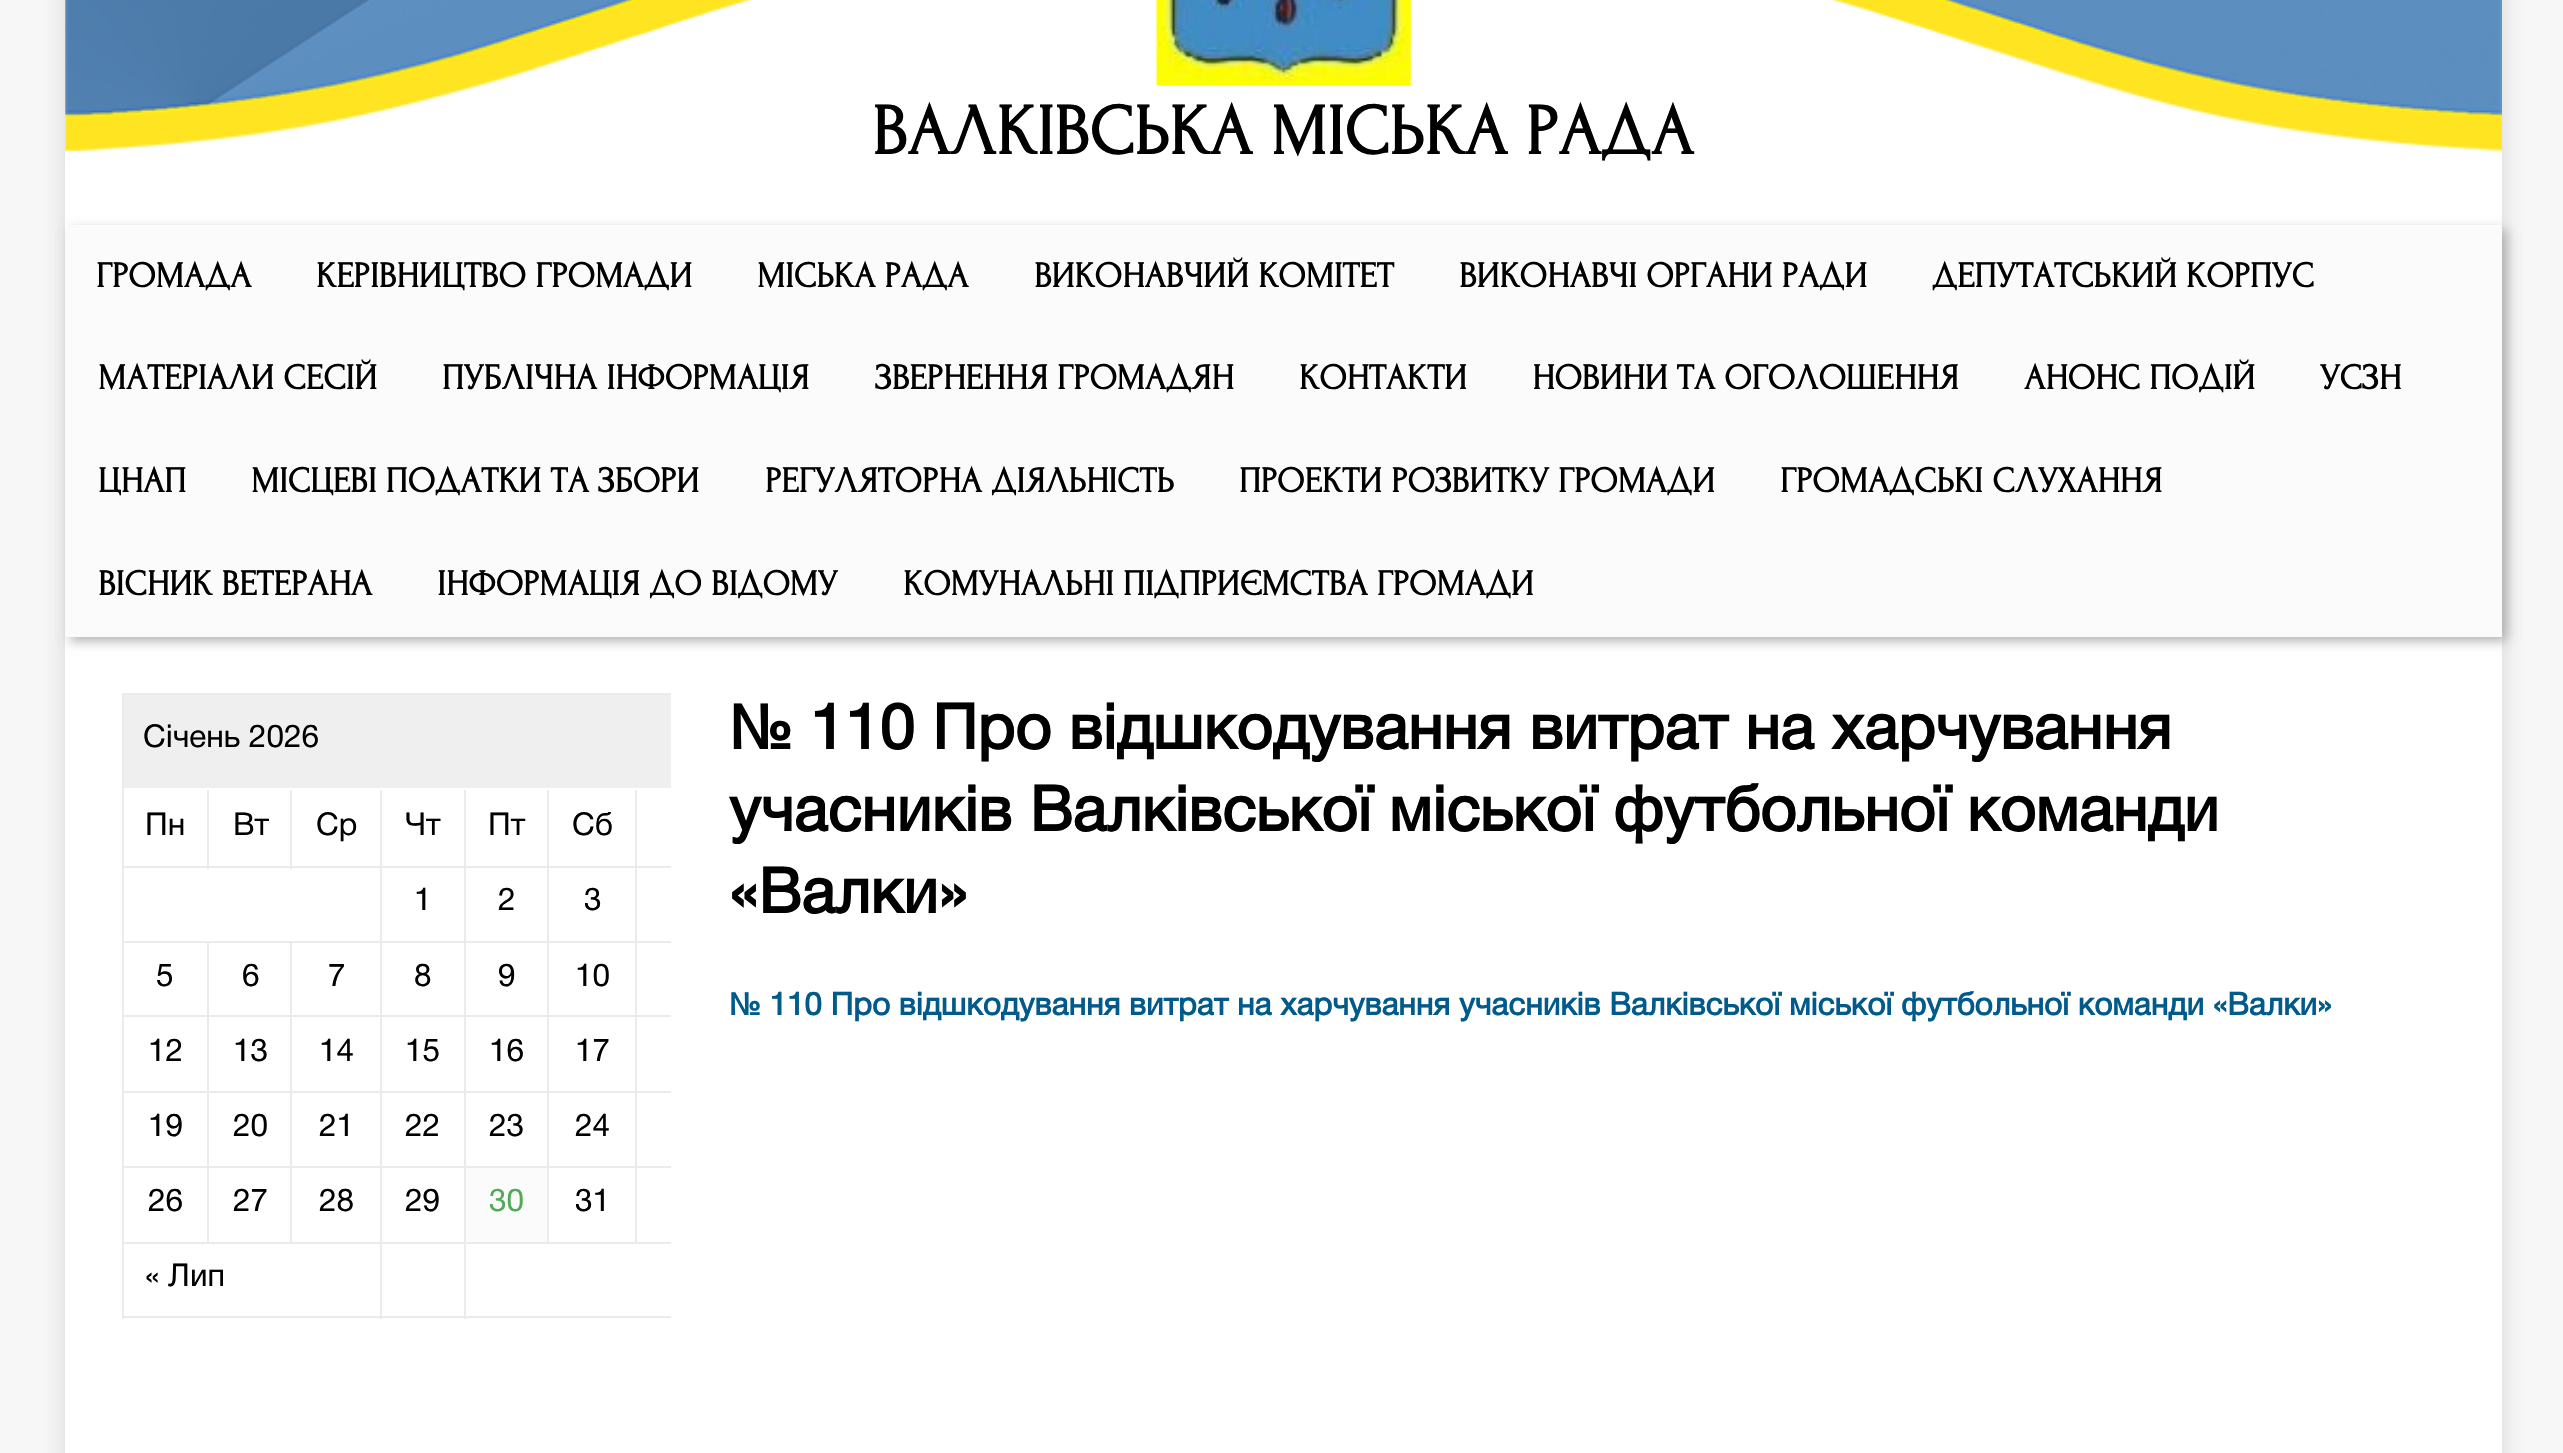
static SkFont makeFont(const char* family, int weight, float size, bool italic = false) {
  SkFontStyle style(weight, SkFontStyle::kNormal_Width,
    italic ? SkFontStyle::kItalic_Slant : SkFontStyle::kUpright_Slant);
  SkFont result(fontMgr->matchFamilyStyle(family, style), size);
  result.setSubpixel(true);
  return result;
}

static void text(SkCanvas* c, const char* s, float x, float y, const SkFont& font, SkColor color) {
  SkPaint ink(SkColor4f::FromColor(color));
  ink.setAntiAlias(true);
  c->drawString(s, x, y, font, ink);
}

static void box(SkCanvas* c, float l, float t, float r, float b, SkColor color) {
  SkPaint ink(SkColor4f::FromColor(color));
  ink.setAntiAlias(true);
  c->drawRect(SkRect::MakeLTRB(l, t, r, b), ink);
}

static void picture(SkCanvas* c, const char* path, float l, float t, float r, float b) {
  auto image = SkImages::DeferredFromEncodedData(SkData::MakeFromFileName(path));
  c->drawImageRect(image, SkRect::MakeLTRB(l, t, r, b), SkSamplingOptions());
}

void draw(SkCanvas* c) {
  SkPaint paint;
  paint.setAntiAlias(true);
  c->clear(0xfff7f7f7);
  paint.setColor(0x2b323232);
  paint.setMaskFilter(SkMaskFilter::MakeBlur(kNormal_SkBlurStyle, 11));
  c->drawRect(SkRect::MakeLTRB(65, -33, 2502, 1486), paint);
  paint.setMaskFilter(nullptr);
  box(c, 65, 0, 2502, 225, 0xffffffff);
  picture(c, "img_01.png", 65, 0, 2502, 152);
  picture(c, "img_02.png", 1156, 0, 1411, 86);
  SkFont face1 = makeFont("Forum", 700, 72);
  text(c, "ВАЛКІВСЬКА МІСЬКА РАДА", 872, 154, face1, 0xff000000);
  box(c, 65, 637, 2502, 1453, 0xffffffff);
  paint.setColor(0xffafafaf);
  paint.setMaskFilter(SkMaskFilter::MakeBlur(kNormal_SkBlurStyle, 5.5f));
  c->drawRect(SkRect::MakeLTRB(70, 230, 2507, 641), paint);
  paint.setMaskFilter(nullptr);
  box(c, 65, 225, 2502, 637, 0xfffbfbfb);
  SkFont face2 = makeFont("Forum", 700, 36);
  text(c, "ГРОМАДА", 96, 287, face2, 0xff000000);
  text(c, "КЕРІВНИЦТВО ГРОМАДИ", 316, 287, face2, 0xff000000);
  text(c, "МIСЬКА РАДА", 757, 287, face2, 0xff000000);
  text(c, "ВИКОНАВЧИЙ КОМIТЕТ", 1034, 287, face2, 0xff000000);
  text(c, "ВИКОНАВЧІ ОРГАНИ РАДИ", 1459, 287, face2, 0xff000000);
  text(c, "ДЕПУТАТСЬКИЙ КОРПУС", 1932, 287, face2, 0xff000000);
  text(c, "МАТЕРІАЛИ СЕСІЙ", 98, 389, face2, 0xff000000);
  text(c, "ПУБЛІЧНА ІНФОРМАЦІЯ", 442, 389, face2, 0xff000000);
  text(c, "ЗВЕРНЕННЯ ГРОМАДЯН", 875, 389, face2, 0xff000000);
  text(c, "КОНТАКТИ", 1299, 389, face2, 0xff000000);
  text(c, "НОВИНИ ТА ОГОЛОШЕННЯ", 1532, 389, face2, 0xff000000);
  text(c, "АНОНС ПОДІЙ", 2024, 389, face2, 0xff000000);
  text(c, "УСЗН", 2320, 389, face2, 0xff000000);
  text(c, "ЦНАП", 98, 492, face2, 0xff000000);
  text(c, "МІСЦЕВІ ПОДАТКИ ТА ЗБОРИ", 251, 492, face2, 0xff000000);
  text(c, "РЕГУЛЯТОРНА ДІЯЛЬНІСТЬ", 765, 492, face2, 0xff000000);
  text(c, "ПРОЕКТИ РОЗВИТКУ ГРОМАДИ", 1239, 492, face2, 0xff000000);
  text(c, "ГРОМАДСЬКІ СЛУХАННЯ", 1780, 492, face2, 0xff000000);
  text(c, "ВІСНИК ВЕТЕРАНА", 98, 595, face2, 0xff000000);
  text(c, "ІНФОРМАЦІЯ ДО ВІДОМУ", 437, 595, face2, 0xff000000);
  text(c, "КОМУНАЛЬНІ ПІДПРИЄМСТВА ГРОМАДИ", 903, 595, face2, 0xff000000);
  box(c, 122, 693, 671, 695, 0xffebebeb);
  box(c, 122, 693, 124, 1319, 0xffebebeb);
  box(c, 124, 695, 671, 788, 0xffefefef);
  SkFont face3 = makeFont("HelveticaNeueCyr", 400, 31.5f);
  text(c, "Січень 2026", 143, 747, face3, 0xff000000);
  box(c, 635, 1242, 671, 1244, 0xffebebeb);
  box(c, 635, 1166, 637, 1244, 0xffebebeb);
  box(c, 635, 1166, 671, 1168, 0xffebebeb);
  box(c, 635, 1091, 637, 1168, 0xffebebeb);
  box(c, 635, 1091, 671, 1093, 0xffebebeb);
  box(c, 635, 1015, 637, 1094, 0xffebebeb);
  box(c, 635, 1015, 671, 1017, 0xffebebeb);
  box(c, 635, 941, 637, 1017, 0xffebebeb);
  box(c, 635, 941, 671, 943, 0xffebebeb);
  box(c, 635, 866, 637, 943, 0xffebebeb);
  box(c, 635, 866, 671, 868, 0xffebebeb);
  box(c, 635, 790, 637, 869, 0xffebebeb);
  box(c, 547, 1242, 637, 1244, 0xffebebeb);
  box(c, 547, 1166, 549, 1244, 0xffebebeb);
  box(c, 547, 1166, 637, 1168, 0xffebebeb);
  box(c, 547, 1091, 549, 1168, 0xffebebeb);
  box(c, 547, 1091, 637, 1093, 0xffebebeb);
  box(c, 547, 1015, 549, 1094, 0xffebebeb);
  box(c, 547, 1015, 637, 1017, 0xffebebeb);
  box(c, 547, 941, 549, 1017, 0xffebebeb);
  box(c, 547, 941, 637, 943, 0xffebebeb);
  box(c, 547, 866, 549, 943, 0xffebebeb);
  box(c, 547, 866, 637, 868, 0xffebebeb);
  box(c, 547, 790, 549, 869, 0xffebebeb);
  box(c, 464, 1242, 549, 1244, 0xffebebeb);
  box(c, 464, 1166, 466, 1244, 0xffebebeb);
  box(c, 464, 1166, 549, 1168, 0xffebebeb);
  box(c, 464, 1091, 466, 1168, 0xffebebeb);
  box(c, 464, 1091, 549, 1093, 0xffebebeb);
  box(c, 464, 1015, 466, 1094, 0xffebebeb);
  box(c, 464, 1015, 549, 1017, 0xffebebeb);
  box(c, 464, 941, 466, 1017, 0xffebebeb);
  box(c, 464, 941, 549, 943, 0xffebebeb);
  box(c, 464, 866, 466, 943, 0xffebebeb);
  box(c, 464, 866, 549, 868, 0xffebebeb);
  box(c, 464, 790, 466, 869, 0xffebebeb);
  box(c, 380, 1242, 466, 1244, 0xffebebeb);
  box(c, 380, 1166, 382, 1244, 0xffebebeb);
  box(c, 380, 1166, 466, 1168, 0xffebebeb);
  box(c, 380, 1091, 382, 1168, 0xffebebeb);
  box(c, 380, 1091, 466, 1093, 0xffebebeb);
  box(c, 380, 1015, 382, 1094, 0xffebebeb);
  box(c, 380, 1015, 466, 1017, 0xffebebeb);
  box(c, 380, 941, 382, 1017, 0xffebebeb);
  box(c, 380, 941, 466, 943, 0xffebebeb);
  box(c, 380, 866, 382, 943, 0xffebebeb);
  box(c, 380, 866, 466, 868, 0xffebebeb);
  box(c, 380, 790, 382, 869, 0xffebebeb);
  box(c, 290, 866, 383, 868, 0xffebebeb);
  box(c, 290, 790, 292, 869, 0xffebebeb);
  box(c, 207, 866, 293, 868, 0xffebebeb);
  box(c, 207, 790, 209, 869, 0xffebebeb);
  box(c, 122, 866, 209, 868, 0xffebebeb);
  text(c, "Пн", 145, 835, face3, 0xff000000);
  text(c, "Вт", 233, 835, face3, 0xff000000);
  text(c, "Ср", 316, 835, face3, 0xff000000);
  text(c, "Чт", 405, 835, face3, 0xff000000);
  text(c, "Пт", 488, 835, face3, 0xff000000);
  text(c, "Сб", 572, 835, face3, 0xff000000);
  box(c, 290, 1242, 383, 1244, 0xffebebeb);
  box(c, 290, 1166, 292, 1244, 0xffebebeb);
  box(c, 290, 1166, 383, 1168, 0xffebebeb);
  box(c, 290, 1091, 292, 1168, 0xffebebeb);
  box(c, 290, 1091, 383, 1093, 0xffebebeb);
  box(c, 290, 1015, 292, 1094, 0xffebebeb);
  box(c, 290, 1015, 383, 1017, 0xffebebeb);
  box(c, 290, 941, 292, 1017, 0xffebebeb);
  box(c, 207, 1242, 293, 1244, 0xffebebeb);
  box(c, 207, 1166, 209, 1244, 0xffebebeb);
  box(c, 207, 1166, 293, 1168, 0xffebebeb);
  box(c, 207, 1091, 209, 1168, 0xffebebeb);
  box(c, 207, 1091, 293, 1093, 0xffebebeb);
  box(c, 207, 1015, 209, 1094, 0xffebebeb);
  box(c, 207, 1015, 293, 1017, 0xffebebeb);
  box(c, 207, 941, 209, 1017, 0xffebebeb);
  box(c, 122, 941, 383, 943, 0xffebebeb);
  text(c, "1", 414, 910, face3, 0xff000000);
  text(c, "2", 498, 910, face3, 0xff000000);
  text(c, "3", 584, 910, face3, 0xff000000);
  box(c, 122, 1015, 209, 1017, 0xffebebeb);
  text(c, "5", 156, 986, face3, 0xff000000);
  text(c, "6", 242, 986, face3, 0xff000000);
  text(c, "7", 328, 986, face3, 0xff000000);
  text(c, "8", 414, 986, face3, 0xff000000);
  text(c, "9", 498, 986, face3, 0xff000000);
  text(c, "10", 575, 986, face3, 0xff000000);
  box(c, 122, 1091, 209, 1093, 0xffebebeb);
  text(c, "12", 148, 1061, face3, 0xff000000);
  text(c, "13", 233, 1061, face3, 0xff000000);
  text(c, "14", 319, 1061, face3, 0xff000000);
  text(c, "15", 405, 1061, face3, 0xff000000);
  text(c, "16", 489, 1061, face3, 0xff000000);
  text(c, "17", 575, 1061, face3, 0xff000000);
  box(c, 122, 1166, 209, 1168, 0xffebebeb);
  text(c, "19", 148, 1136, face3, 0xff000000);
  text(c, "20", 233, 1136, face3, 0xff000000);
  text(c, "21", 319, 1136, face3, 0xff000000);
  text(c, "22", 405, 1136, face3, 0xff000000);
  text(c, "23", 489, 1136, face3, 0xff000000);
  text(c, "24", 575, 1136, face3, 0xff000000);
  box(c, 122, 1242, 209, 1244, 0xffebebeb);
  text(c, "26", 148, 1211, face3, 0xff000000);
  text(c, "27", 233, 1211, face3, 0xff000000);
  text(c, "28", 319, 1211, face3, 0xff000000);
  text(c, "29", 405, 1211, face3, 0xff000000);
  box(c, 466, 1168, 547, 1242, 0xfffbfbfb);
  text(c, "30", 489, 1211, face3, 0xff50ab56);
  text(c, "31", 575, 1211, face3, 0xff000000);
  box(c, 464, 1316, 671, 1318, 0xffebebeb);
  box(c, 464, 1242, 466, 1319, 0xffebebeb);
  box(c, 380, 1316, 466, 1318, 0xffebebeb);
  box(c, 380, 1242, 382, 1319, 0xffebebeb);
  box(c, 122, 1316, 383, 1318, 0xffebebeb);
  text(c, "« Лип", 145, 1286, face3, 0xff000000);
  SkFont face4 = makeFont("HelveticaNeueCyr", 700, 63);
  text(c, "№ 110 Про відшкодування витрат на харчування", 729, 749, face4, 0xff000000);
  text(c, "учасників Валківської міської футбольної команди", 729, 831, face4, 0xff000000);
  text(c, "«Валки»", 729, 913, face4, 0xff000000);
  SkFont face5 = makeFont("HelveticaNeueCyr", 700, 31.5f);
  text(c, "№ 110 Про відшкодування витрат на харчування учасників Валківської міської футбольної команди «Валки»", 729, 1015, face5, 0xff005a8c);
}
